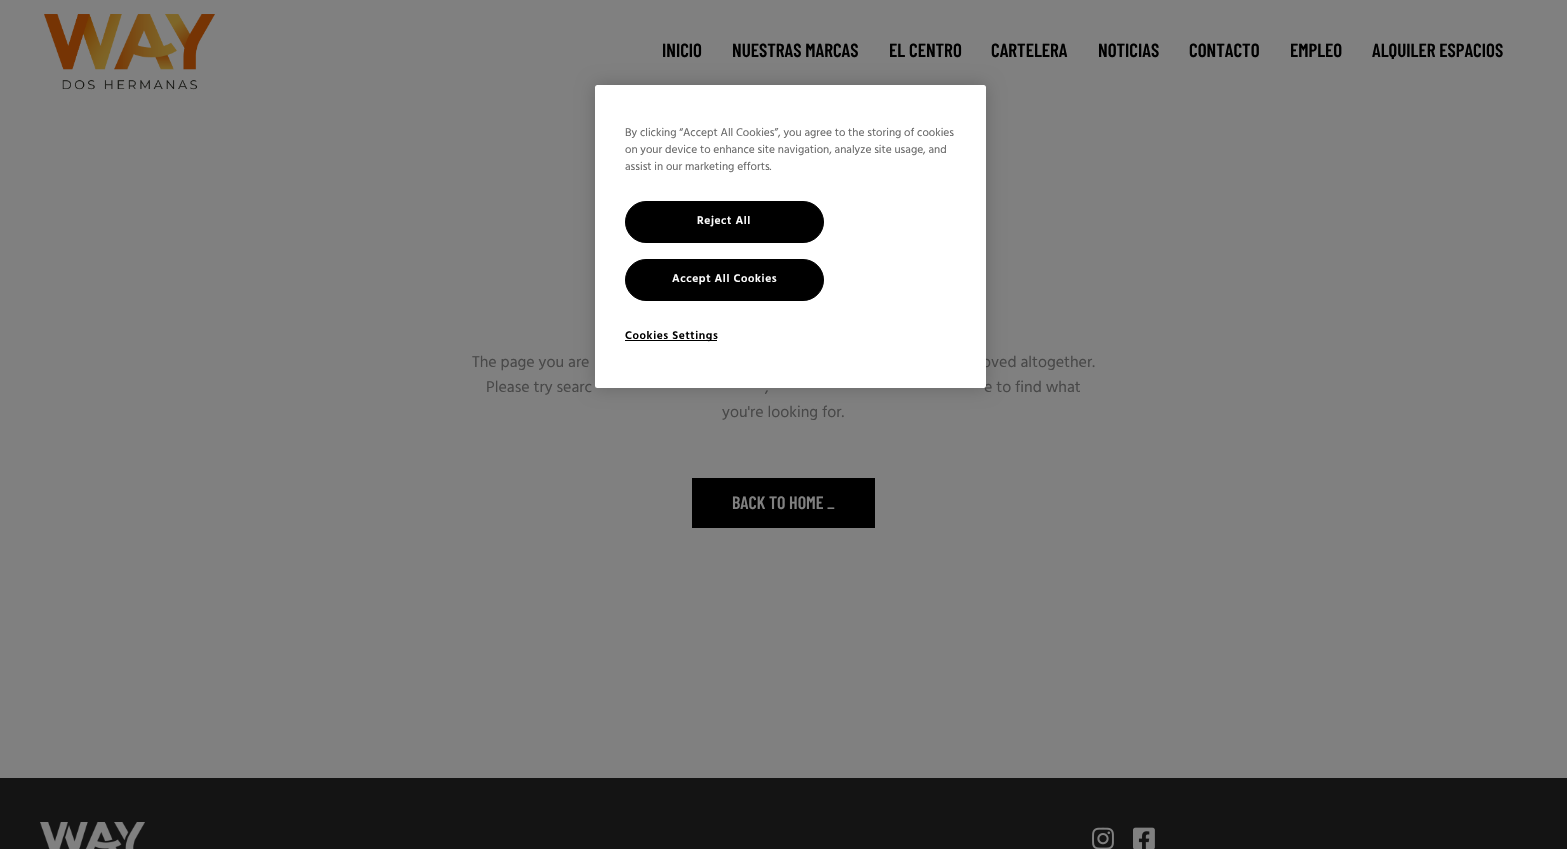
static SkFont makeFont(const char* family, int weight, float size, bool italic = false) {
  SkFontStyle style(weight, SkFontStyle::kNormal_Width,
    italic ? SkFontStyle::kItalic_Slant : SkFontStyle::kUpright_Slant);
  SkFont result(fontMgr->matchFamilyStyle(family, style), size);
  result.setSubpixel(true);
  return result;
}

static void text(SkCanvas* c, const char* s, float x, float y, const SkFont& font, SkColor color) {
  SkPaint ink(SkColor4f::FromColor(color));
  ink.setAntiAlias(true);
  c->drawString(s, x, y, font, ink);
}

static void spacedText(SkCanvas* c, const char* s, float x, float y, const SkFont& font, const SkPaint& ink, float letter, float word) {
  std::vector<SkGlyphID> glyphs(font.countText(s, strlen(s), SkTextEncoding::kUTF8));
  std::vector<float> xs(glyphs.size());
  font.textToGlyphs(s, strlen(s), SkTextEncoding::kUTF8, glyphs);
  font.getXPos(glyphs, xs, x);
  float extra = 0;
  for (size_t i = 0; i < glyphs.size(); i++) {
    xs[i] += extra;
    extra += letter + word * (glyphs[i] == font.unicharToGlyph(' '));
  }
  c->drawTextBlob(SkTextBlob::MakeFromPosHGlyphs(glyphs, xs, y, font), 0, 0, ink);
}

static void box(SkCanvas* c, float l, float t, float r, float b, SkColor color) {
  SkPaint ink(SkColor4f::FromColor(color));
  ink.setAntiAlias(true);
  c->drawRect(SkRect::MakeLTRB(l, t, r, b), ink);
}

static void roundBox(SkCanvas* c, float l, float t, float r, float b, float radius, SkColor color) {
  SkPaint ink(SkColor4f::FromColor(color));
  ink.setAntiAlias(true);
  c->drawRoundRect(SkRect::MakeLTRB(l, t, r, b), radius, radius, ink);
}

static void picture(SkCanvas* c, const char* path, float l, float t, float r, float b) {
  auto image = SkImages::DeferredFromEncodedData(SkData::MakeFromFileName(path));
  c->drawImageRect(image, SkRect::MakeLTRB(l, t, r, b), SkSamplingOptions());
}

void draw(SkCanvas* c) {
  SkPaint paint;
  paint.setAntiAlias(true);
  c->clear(0xff808080);
  picture(c, "img_01.png", 44, 14, 215, 90);
  SkFont face1 = makeFont("Barlow Condensed", 600, 19);
  text(c, "INICIO", 662, 57, face1, 0xff000000);
  text(c, "NUESTRAS MARCAS", 732, 57, face1, 0xff000000);
  text(c, "EL CENTRO", 889, 57, face1, 0xff000000);
  text(c, "CARTELERA", 991, 57, face1, 0xff000000);
  text(c, "NOTICIAS", 1098, 57, face1, 0xff000000);
  text(c, "CONTACTO", 1189, 57, face1, 0xff000000);
  text(c, "EMPLEO", 1290, 57, face1, 0xff000000);
  text(c, "ALQUILER ESPACIOS", 1372, 57, face1, 0xff000000);
  SkFont face2 = makeFont("Hind", 400, 16);
  text(c, "The page you are", 472, 367, face2, 0xff484848);
  text(c, "oved altogether.", 982, 367, face2, 0xff484848);
  text(c, "Please try searc", 486, 392, face2, 0xff484848);
  text(c, ",", 765, 392, face2, 0xff484848);
  text(c, "e to find what", 984, 392, face2, 0xff484848);
  text(c, "you're looking for.", 722, 417, face2, 0xff484848);
  box(c, 692, 478, 875, 528, 0xff000000);
  SkFont face3 = makeFont("Barlow Condensed", 600, 18);
  text(c, "BACK TO HOME _", 732, 509, face3, 0xff808080);
  box(c, 0, 778, 1567, 849, 0xff141414);
  picture(c, "img_02.png", 40, 822, 145, 849);
  picture(c, "img_03.png", 1092, 827, 1114, 849);
  picture(c, "img_04.png", 1133, 827, 1155, 849);
  paint.setColor(0x33000000);
  paint.setMaskFilter(SkMaskFilter::MakeBlur(kNormal_SkBlurStyle, 9));
  c->drawRoundRect(SkRect::MakeLTRB(595, 85, 986, 388), 2.5f, 2.5f, paint);
  paint.setMaskFilter(nullptr);
  roundBox(c, 595, 85, 986, 388, 2.5f, 0xffffffff);
  SkFont face4 = makeFont("Hind", 400, 11.4f);
  text(c, "By clicking “Accept All Cookies”, you agree to the storing of cookies", 625, 136, face4, 0xff696969);
  text(c, "on your device to enhance site navigation, analyze site usage, and", 625, 153, face4, 0xff696969);
  text(c, "assist in our marketing efforts.", 625, 170, face4, 0xff696969);
  paint.setColor(0xff000000);
  c->drawRoundRect(SkRect::MakeLTRB(625.5f, 201.5f, 823.5f, 242.5f), 20.5f, 20.5f, paint);
  paint.setStyle(SkPaint::kStroke_Style);
  paint.setStrokeWidth(1);
  c->drawRoundRect(SkRect::MakeLTRB(625.5f, 201.5f, 823.5f, 242.5f), 20.5f, 20.5f, paint);
  SkFont face5 = makeFont("Hind", 600, 11.4f);
  paint.setStyle(SkPaint::kFill_Style);
  paint.setColor(0xffffffff);
  spacedText(c, "Reject All", 697, 224, face5, paint, 0.6f, 0);
  paint.setColor(0xff000000);
  c->drawRoundRect(SkRect::MakeLTRB(625.5f, 259.5f, 823.5f, 300.5f), 20.5f, 20.5f, paint);
  paint.setStyle(SkPaint::kStroke_Style);
  c->drawRoundRect(SkRect::MakeLTRB(625.5f, 259.5f, 823.5f, 300.5f), 20.5f, 20.5f, paint);
  paint.setStyle(SkPaint::kFill_Style);
  paint.setColor(0xffffffff);
  spacedText(c, "Accept All Cookies", 672, 282, face5, paint, 0.6f, 0);
  box(c, 625, 340, 717, 341, 0xff000000);
  paint.setColor(0xff000000);
  spacedText(c, "Cookies Settings", 625, 339, face5, paint, 0.6f, 0);
}
